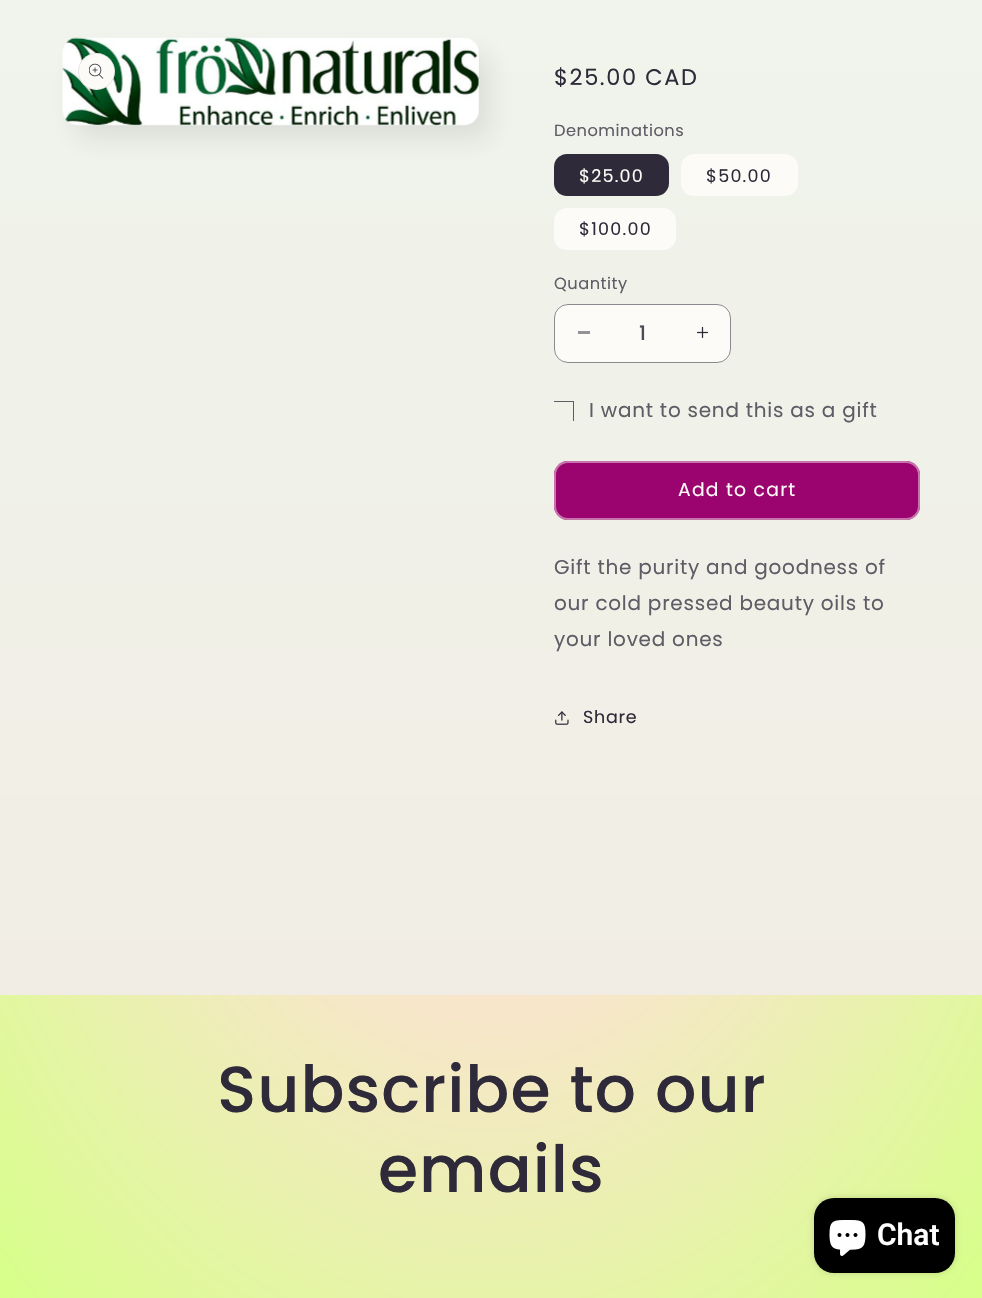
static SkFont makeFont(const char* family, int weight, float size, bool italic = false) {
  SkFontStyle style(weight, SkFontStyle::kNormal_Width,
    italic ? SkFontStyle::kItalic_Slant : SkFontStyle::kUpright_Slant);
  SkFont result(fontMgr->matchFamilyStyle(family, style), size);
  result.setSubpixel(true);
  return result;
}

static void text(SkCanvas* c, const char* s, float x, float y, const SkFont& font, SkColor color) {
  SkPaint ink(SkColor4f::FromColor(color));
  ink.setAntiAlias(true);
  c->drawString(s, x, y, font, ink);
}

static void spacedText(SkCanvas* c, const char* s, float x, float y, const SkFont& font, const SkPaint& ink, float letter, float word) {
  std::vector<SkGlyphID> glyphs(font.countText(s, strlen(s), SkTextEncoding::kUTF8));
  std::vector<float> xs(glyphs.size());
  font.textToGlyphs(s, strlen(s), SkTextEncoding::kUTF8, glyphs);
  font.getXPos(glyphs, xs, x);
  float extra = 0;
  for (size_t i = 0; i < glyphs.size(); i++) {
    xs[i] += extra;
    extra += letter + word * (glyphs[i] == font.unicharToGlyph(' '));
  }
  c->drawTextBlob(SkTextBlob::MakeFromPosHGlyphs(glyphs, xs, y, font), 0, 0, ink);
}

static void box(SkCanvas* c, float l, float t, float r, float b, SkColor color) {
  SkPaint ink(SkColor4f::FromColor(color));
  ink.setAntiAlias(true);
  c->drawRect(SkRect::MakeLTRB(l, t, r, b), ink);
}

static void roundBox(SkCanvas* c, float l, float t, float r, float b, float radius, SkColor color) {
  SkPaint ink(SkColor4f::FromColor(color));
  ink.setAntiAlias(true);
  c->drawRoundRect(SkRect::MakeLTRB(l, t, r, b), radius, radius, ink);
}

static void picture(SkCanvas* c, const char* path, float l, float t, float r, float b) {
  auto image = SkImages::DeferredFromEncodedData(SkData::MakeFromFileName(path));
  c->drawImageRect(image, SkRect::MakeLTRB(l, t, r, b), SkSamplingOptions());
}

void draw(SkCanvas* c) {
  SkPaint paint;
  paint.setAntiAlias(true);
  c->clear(0xffffffff);
  {
    const SkColor colors[] = {0xfff0f4ec, 0xfff1ebe2};
    const float stops[] = {0, 1};
    const SkPoint ends[] = {{491, 0}, {491, 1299}};
    paint.setShader(SkGradientShader::MakeLinear(ends, colors, stops, 2, SkTileMode::kClamp));
    paint.setAlpha(255);
  }
  c->drawRect(SkRect::MakeLTRB(0, 0, 982, 995), paint);
  paint.setShader(nullptr);
  paint.setColor(0x1a2e2a39);
  paint.setMaskFilter(SkMaskFilter::MakeBlur(kNormal_SkBlurStyle, 12.5f));
  c->drawRoundRect(SkRect::MakeLTRB(75, 53, 491, 140), 15, 15, paint);
  paint.setMaskFilter(nullptr);
  {
    const SkColor colors[] = {0xfff0f4ec, 0xfff1ebe2};
    const float stops[] = {0, 1};
    const SkPoint ends[] = {{491, 0}, {491, 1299}};
    paint.setShader(SkGradientShader::MakeLinear(ends, colors, stops, 2, SkTileMode::kClamp));
    paint.setAlpha(255);
  }
  c->drawRoundRect(SkRect::MakeLTRB(63, 38, 479, 125), 15, 15, paint);
  picture(c, "img_01.png", 62, 37, 479, 126);
  paint.setShader(nullptr);
  paint.setColor(0xfffdfbf7);
  c->drawCircle(96.5f, 71.5f, 18.5f, paint);
  paint.setStyle(SkPaint::kStroke_Style);
  paint.setStrokeWidth(1);
  paint.setColor(0x1a2e2a39);
  c->drawCircle(96.5f, 71.5f, 18, paint);
  picture(c, "img_02.png", 89, 63, 104, 79);
  SkFont face1 = makeFont("Poppins", 400, 22.5f);
  paint.setStyle(SkPaint::kFill_Style);
  paint.setColor(0xff2e2a39);
  spacedText(c, "$25.00 CAD", 554, 85, face1, paint, 1.6f, 0);
  SkFont face2 = makeFont("Poppins", 400, 16.25f);
  paint.setColor(0xff5f5c66);
  spacedText(c, "Denominations", 554, 136, face2, paint, 0.5f, 0);
  roundBox(c, 554, 154, 669, 196, 13, 0xff2e2a39);
  SkFont face3 = makeFont("Poppins", 400, 17.5f);
  paint.setColor(0xfffdfbf7);
  spacedText(c, "$25.00", 579, 182, face3, paint, 1.25f, 0);
  roundBox(c, 681, 154, 798, 196, 13, 0xfffdfbf7);
  paint.setColor(0xff2e2a39);
  spacedText(c, "$50.00", 706, 182, face3, paint, 1.25f, 0);
  roundBox(c, 554, 208, 676, 250, 13, 0xfffdfbf7);
  spacedText(c, "$100.00", 579, 235, face3, paint, 1.25f, 0);
  paint.setColor(0xff5f5c66);
  spacedText(c, "Quantity", 554, 289, face2, paint, 0.5f, 0);
  roundBox(c, 554, 304, 731, 363, 14, 0xfffdfbf7);
  box(c, 578, 331, 590, 334, 0xff969398);
  picture(c, "img_03.png", 696, 326, 709, 339);
  paint.setStyle(SkPaint::kStroke_Style);
  paint.setColor(0x8c2e2a39);
  c->drawRoundRect(SkRect::MakeLTRB(554.5f, 304.5f, 730.5f, 362.5f), 13.5f, 13.5f, paint);
  SkFont face4 = makeFont("Poppins", 500, 20);
  text(c, "1", 639, 340, face4, 0xff4d4956);
  c->save();
  c->clipRect(SkRect::MakeLTRB(554, 401, 574, 421));
  paint.setColor(0xff5f5c65);
  c->drawRect(SkRect::MakeLTRB(553.5f, 401.5f, 573.5f, 421.5f), paint);
  c->restore();
  SkFont face5 = makeFont("Poppins", 400, 20);
  paint.setStyle(SkPaint::kFill_Style);
  paint.setColor(0xff5f5c66);
  spacedText(c, "I want to send this as a gift", 589, 417, face5, paint, 0.75f, 0);
  roundBox(c, 554, 461, 920, 520, 14, 0xff9b046f);
  paint.setStyle(SkPaint::kStroke_Style);
  paint.setColor(0xff9b046f);
  c->drawRoundRect(SkRect::MakeLTRB(554.5f, 461.5f, 919.5f, 519.5f), 13.5f, 13.5f, paint);
  paint.setStrokeWidth(2);
  paint.setColor(0x73fdfbf7);
  c->drawRoundRect(SkRect::MakeLTRB(555, 462, 919, 519), 13, 13, paint);
  SkFont face6 = makeFont("Poppins", 400, 18.75f);
  paint.setStyle(SkPaint::kFill_Style);
  paint.setColor(0xfffdfbf7);
  spacedText(c, "Add to cart", 678, 496, face6, paint, 1.25f, 0);
  paint.setColor(0xff5f5c66);
  spacedText(c, "Gift the purity and goodness of", 554, 574, face5, paint, 0.75f, 0);
  spacedText(c, "our cold pressed beauty oils to", 554, 610, face5, paint, 0.75f, 0);
  spacedText(c, "your loved ones", 554, 646, face5, paint, 0.75f, 0);
  picture(c, "img_04.png", 555, 711, 569, 725);
  paint.setColor(0xff2e2a39);
  spacedText(c, "Share", 583, 723, face3, paint, 0.75f, 0);
  {
    const SkColor colors[] = {0xffffe5e5, 0xffffe0da, 0xffd7ff89};
    const float stops[] = {0, 0.25f, 1};
    SkMatrix m = SkMatrix::Translate(491, 649).preScale(695, 918);
    paint.setShader(SkGradientShader::MakeRadial({0, 0}, 1, colors, stops, 3, SkTileMode::kClamp, 0, &m));
    paint.setAlpha(255);
  }
  c->drawRect(SkRect::MakeLTRB(0, 995, 982, 1298), paint);
  SkFont face7 = makeFont("Poppins", 500, 65);
  paint.setShader(nullptr);
  paint.setColor(0xff2e2a39);
  spacedText(c, "Subscribe to our", 217, 1112, face7, paint, 1, 0);
  spacedText(c, "emails", 378, 1192, face7, paint, 1, 0);
  paint.setColor(0x26000000);
  paint.setMaskFilter(SkMaskFilter::MakeBlur(kNormal_SkBlurStyle, 3));
  c->drawRoundRect(SkRect::MakeLTRB(814, 1198, 955, 1273), 20, 20, paint);
  paint.setMaskFilter(nullptr);
  roundBox(c, 814, 1198, 955, 1273, 20, 0xff000000);
  picture(c, "img_05.png", 829, 1220, 866, 1256);
  SkFont face8 = makeFont("Roboto", 600, 30);
  text(c, "Chat", 877, 1245, face8, 0xffffffff);
}
